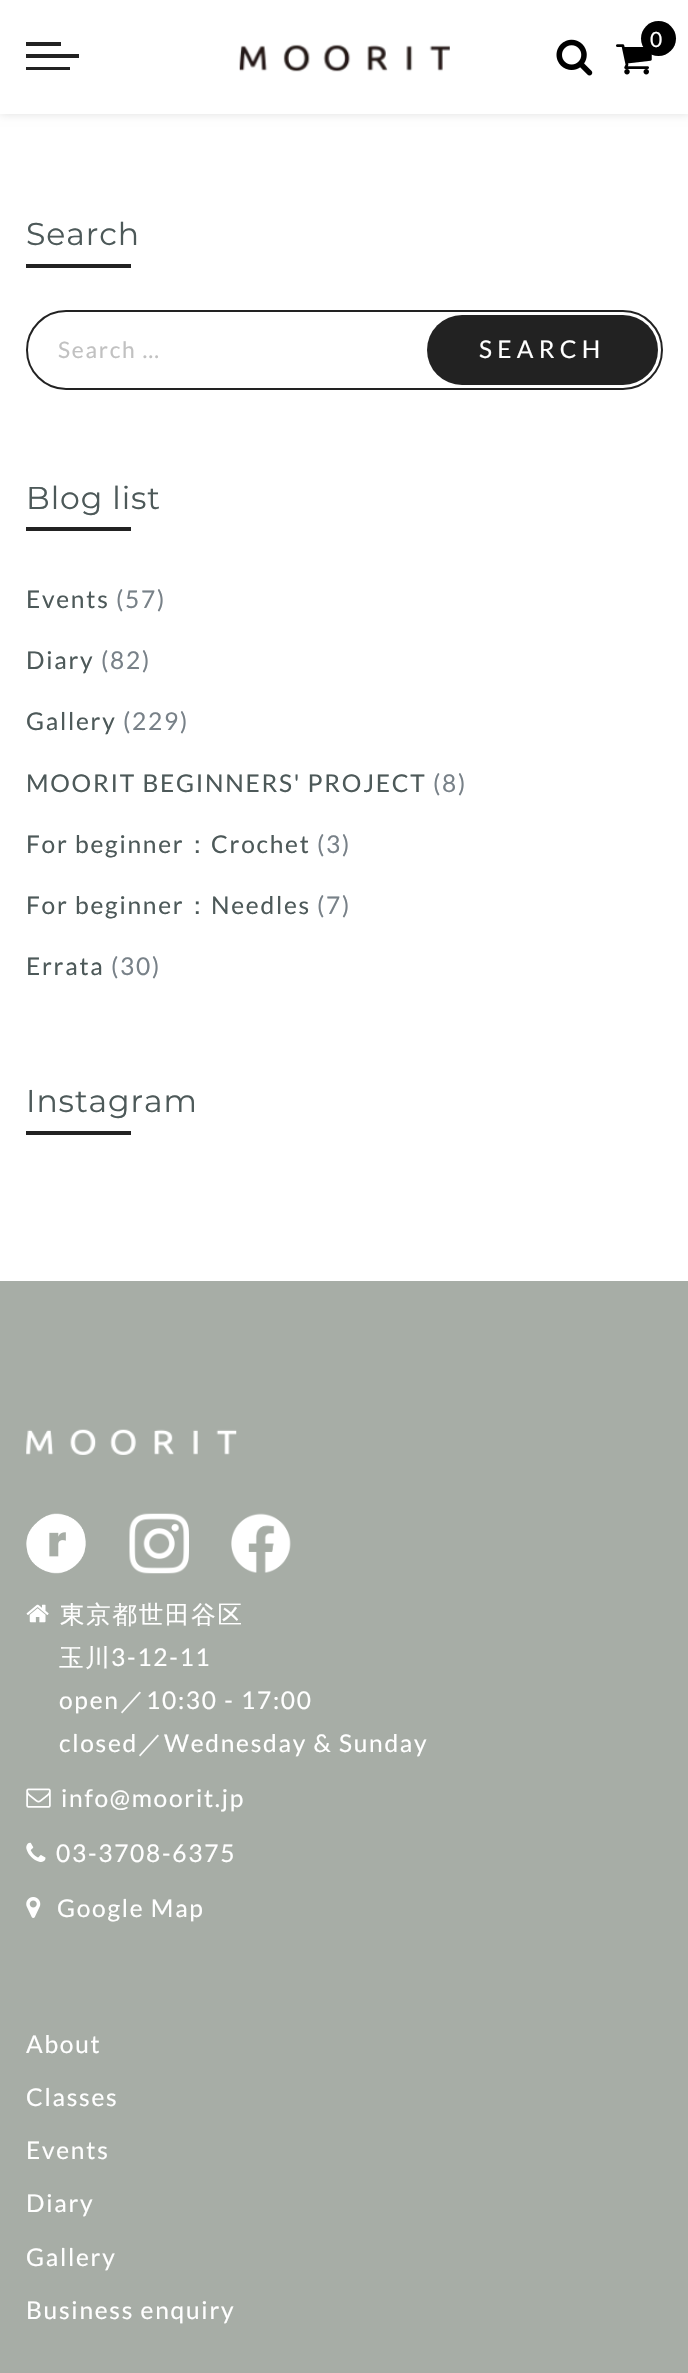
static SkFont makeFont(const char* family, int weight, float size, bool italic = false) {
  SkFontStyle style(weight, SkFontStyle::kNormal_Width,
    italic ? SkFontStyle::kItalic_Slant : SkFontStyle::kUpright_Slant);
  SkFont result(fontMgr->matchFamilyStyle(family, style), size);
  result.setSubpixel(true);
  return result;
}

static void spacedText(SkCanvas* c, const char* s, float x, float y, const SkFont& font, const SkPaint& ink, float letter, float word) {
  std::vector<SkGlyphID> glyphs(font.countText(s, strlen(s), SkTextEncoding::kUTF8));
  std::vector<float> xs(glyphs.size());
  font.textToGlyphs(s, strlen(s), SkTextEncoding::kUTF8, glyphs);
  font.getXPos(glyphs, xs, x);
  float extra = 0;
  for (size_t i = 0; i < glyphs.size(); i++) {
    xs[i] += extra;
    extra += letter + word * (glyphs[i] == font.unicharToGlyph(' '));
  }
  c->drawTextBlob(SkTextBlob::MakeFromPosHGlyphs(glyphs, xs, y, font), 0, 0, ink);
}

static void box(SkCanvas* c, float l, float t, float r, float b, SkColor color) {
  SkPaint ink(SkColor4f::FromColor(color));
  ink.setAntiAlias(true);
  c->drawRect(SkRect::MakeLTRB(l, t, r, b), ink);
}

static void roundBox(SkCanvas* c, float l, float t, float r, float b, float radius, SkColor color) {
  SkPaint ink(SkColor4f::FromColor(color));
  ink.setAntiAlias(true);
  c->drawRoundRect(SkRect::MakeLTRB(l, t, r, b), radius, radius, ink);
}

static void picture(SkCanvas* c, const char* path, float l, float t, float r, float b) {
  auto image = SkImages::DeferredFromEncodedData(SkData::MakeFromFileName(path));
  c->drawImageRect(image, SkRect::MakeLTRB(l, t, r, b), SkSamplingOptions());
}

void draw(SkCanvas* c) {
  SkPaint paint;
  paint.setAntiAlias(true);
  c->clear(0xffffffff);
  paint.setColor(0x1f000000);
  paint.setMaskFilter(SkMaskFilter::MakeBlur(kNormal_SkBlurStyle, 4.5f));
  c->drawRect(SkRect::MakeLTRB(0, 0, 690, 114), paint);
  paint.setMaskFilter(nullptr);
  box(c, 0, 0, 688, 114, 0xffffffff);
  picture(c, "img_01.png", 556, 39, 593, 76);
  picture(c, "img_02.png", 616, 44, 652, 75);
  paint.setColor(0xff000000);
  c->drawCircle(658.5f, 38.5f, 17.5f, paint);
  SkFont face1 = makeFont("Lato", 400, 21);
  paint.setColor(0xffffffff);
  spacedText(c, "0", 650, 47, face1, paint, 1.75f, 0);
  box(c, 26, 42, 61, 46, 0xff222222);
  box(c, 26, 54, 79, 58, 0xff222222);
  box(c, 26, 67, 70, 70, 0xff222222);
  picture(c, "img_03.png", 239, 44, 450, 72);
  SkFont face2 = makeFont("Montserrat", 400, 31.5f);
  paint.setColor(0xff4d5959);
  spacedText(c, "Search", 26, 245, face2, paint, 0.9f, 0);
  box(c, 26, 264, 131, 268, 0xff222222);
  paint.setStyle(SkPaint::kStroke_Style);
  paint.setStrokeWidth(2);
  paint.setColor(0xff222222);
  c->drawRoundRect(SkRect::MakeLTRB(27, 311, 662, 389), 39, 39, paint);
  SkFont face3 = makeFont("Lato", 400, 22.75f);
  paint.setStyle(SkPaint::kFill_Style);
  paint.setColor(0xffc1c1c1);
  spacedText(c, "Search …", 58, 358, face3, paint, 1.75f, 0);
  roundBox(c, 427, 315, 658, 385, 35, 0xff222222);
  SkFont face4 = makeFont("Lato", 400, 24.5f);
  paint.setColor(0xffffffff);
  spacedText(c, "SEARCH", 479, 358, face4, paint, 5.25f, 0);
  paint.setColor(0xff4d5959);
  spacedText(c, "Blog list", 26, 509, face2, paint, 0.9f, 0);
  box(c, 26, 527, 131, 531, 0xff222222);
  spacedText(c, "Events", 26, 608, face4, paint, 1.75f, 0);
  paint.setColor(0xff788188);
  spacedText(c, "(57)", 116, 608, face4, paint, 1.75f, 0);
  paint.setColor(0xff4d5959);
  spacedText(c, "Diary", 26, 669, face4, paint, 1.75f, 0);
  paint.setColor(0xff788188);
  spacedText(c, "(82)", 101, 669, face4, paint, 1.75f, 0);
  paint.setColor(0xff4d5959);
  spacedText(c, "Gallery", 26, 730, face4, paint, 1.75f, 0);
  paint.setColor(0xff788188);
  spacedText(c, "(229)", 123, 730, face4, paint, 1.75f, 0);
  paint.setColor(0xff4d5959);
  spacedText(c, "MOORIT BEGINNERS' PROJECT", 26, 792, face4, paint, 1.75f, 0);
  paint.setColor(0xff788188);
  spacedText(c, "(8)", 433, 792, face4, paint, 1.75f, 0);
  paint.setColor(0xff4d5959);
  spacedText(c, "For beginner", 26, 853, face4, paint, 1.75f, 0);
  SkFont face5 = makeFont("WenQuanYi Zen Hei", 500, 24.5f);
  spacedText(c, "：", 185, 853, face5, paint, 1.75f, 0);
  spacedText(c, "Crochet", 211, 853, face4, paint, 1.75f, 0);
  paint.setColor(0xff788188);
  spacedText(c, "(3)", 317, 853, face4, paint, 1.75f, 0);
  paint.setColor(0xff4d5959);
  spacedText(c, "For beginner", 26, 914, face4, paint, 1.75f, 0);
  spacedText(c, "：", 185, 914, face5, paint, 1.75f, 0);
  spacedText(c, "Needles", 211, 914, face4, paint, 1.75f, 0);
  paint.setColor(0xff788188);
  spacedText(c, "(7)", 317, 914, face4, paint, 1.75f, 0);
  paint.setColor(0xff4d5959);
  spacedText(c, "Errata", 26, 975, face4, paint, 1.75f, 0);
  paint.setColor(0xff788188);
  spacedText(c, "(30)", 111, 975, face4, paint, 1.75f, 0);
  paint.setColor(0xff4d5959);
  spacedText(c, "Instagram", 26, 1112, face2, paint, 0.9f, 0);
  box(c, 26, 1131, 131, 1135, 0xff222222);
  box(c, 0, 1281, 688, 2373, 0xffa7ada6);
  picture(c, "img_04.png", 26, 1429, 237, 1455);
  picture(c, "img_05.png", 26, 1513, 86, 1574);
  picture(c, "img_06.png", 129, 1513, 189, 1574);
  picture(c, "img_07.png", 231, 1513, 291, 1573);
  picture(c, "img_08.png", 26, 1604, 49, 1623);
  paint.setColor(0xffffffff);
  spacedText(c, "東京都世田谷区", 60, 1623, face5, paint, 1.75f, 0);
  spacedText(c, "玉川", 59, 1666, face5, paint, 1.75f, 0);
  spacedText(c, "3-12-11", 111, 1666, face4, paint, 1.75f, 0);
  spacedText(c, "open", 59, 1709, face4, paint, 1.75f, 0);
  spacedText(c, "／", 120, 1709, face5, paint, 1.75f, 0);
  spacedText(c, "10:30 - 17:00", 146, 1709, face4, paint, 1.75f, 0);
  spacedText(c, "closed", 59, 1752, face4, paint, 1.75f, 0);
  spacedText(c, "／", 138, 1752, face5, paint, 1.75f, 0);
  spacedText(c, "Wednesday & Sunday", 164, 1752, face4, paint, 1.75f, 0);
  picture(c, "img_09.png", 26, 1788, 51, 1808);
  spacedText(c, "info@moorit.jp", 61, 1807, face4, paint, 1.75f, 0);
  picture(c, "img_10.png", 26, 1842, 46, 1862);
  spacedText(c, "03-3708-6375", 56, 1862, face4, paint, 1.75f, 0);
  picture(c, "img_11.png", 26, 1897, 41, 1918);
  spacedText(c, "Google Map", 57, 1917, face4, paint, 1.75f, 0);
  spacedText(c, "About", 26, 2053, face4, paint, 1.75f, 0);
  spacedText(c, "Classes", 26, 2106, face4, paint, 1.75f, 0);
  spacedText(c, "Events", 26, 2159, face4, paint, 1.75f, 0);
  spacedText(c, "Diary", 26, 2212, face4, paint, 1.75f, 0);
  spacedText(c, "Gallery", 26, 2266, face4, paint, 1.75f, 0);
  spacedText(c, "Business enquiry", 26, 2319, face4, paint, 1.75f, 0);
}
